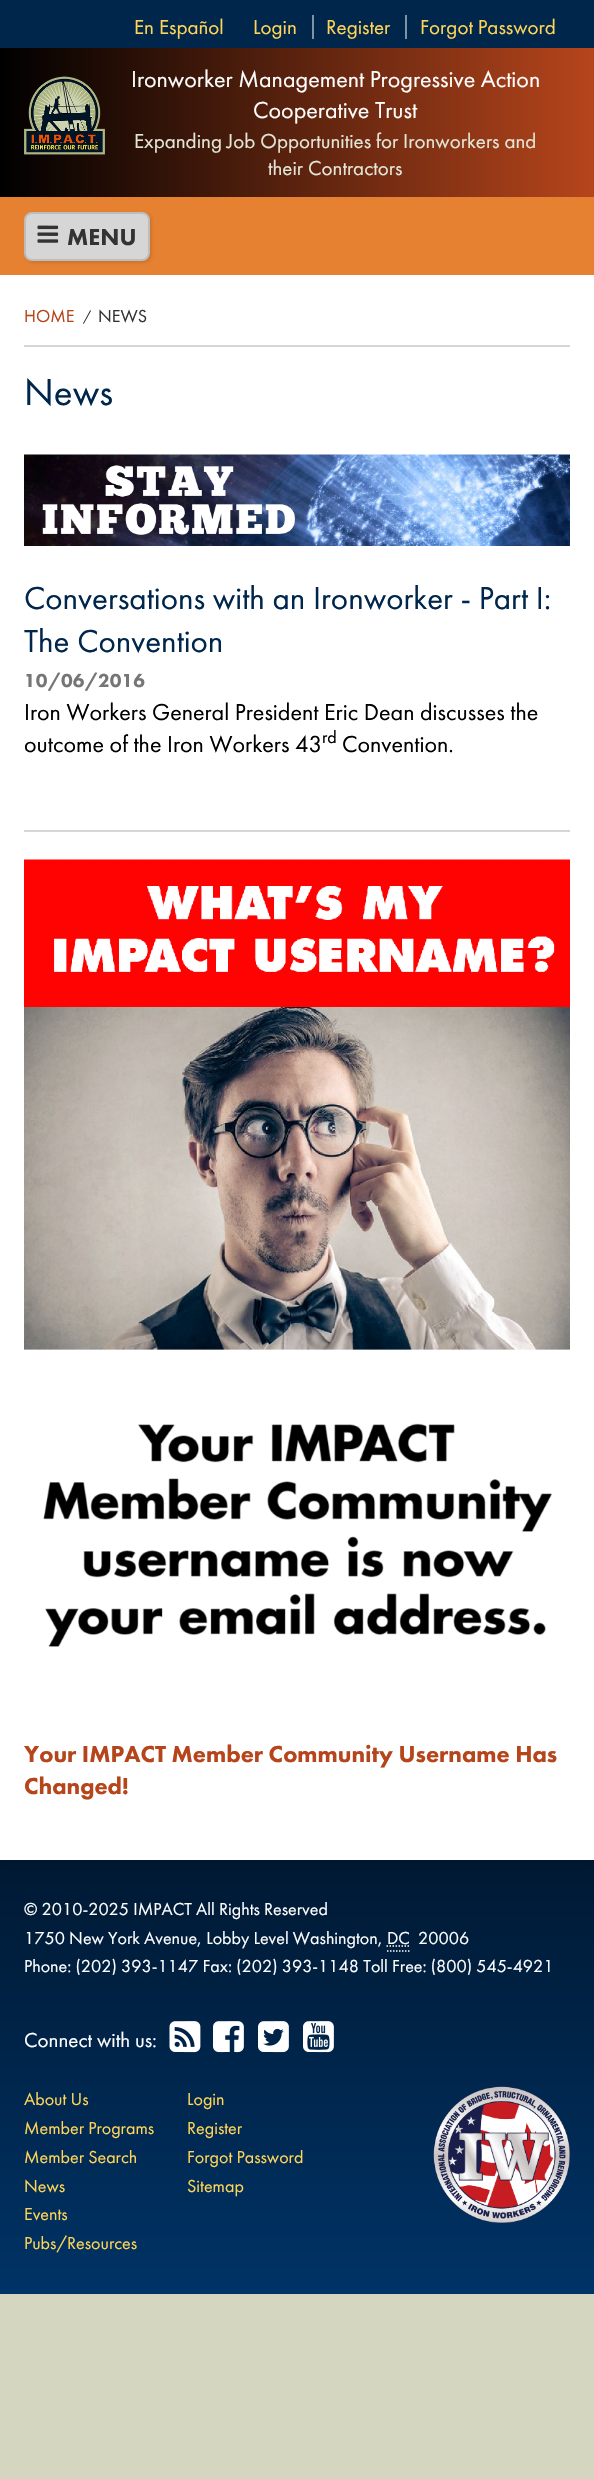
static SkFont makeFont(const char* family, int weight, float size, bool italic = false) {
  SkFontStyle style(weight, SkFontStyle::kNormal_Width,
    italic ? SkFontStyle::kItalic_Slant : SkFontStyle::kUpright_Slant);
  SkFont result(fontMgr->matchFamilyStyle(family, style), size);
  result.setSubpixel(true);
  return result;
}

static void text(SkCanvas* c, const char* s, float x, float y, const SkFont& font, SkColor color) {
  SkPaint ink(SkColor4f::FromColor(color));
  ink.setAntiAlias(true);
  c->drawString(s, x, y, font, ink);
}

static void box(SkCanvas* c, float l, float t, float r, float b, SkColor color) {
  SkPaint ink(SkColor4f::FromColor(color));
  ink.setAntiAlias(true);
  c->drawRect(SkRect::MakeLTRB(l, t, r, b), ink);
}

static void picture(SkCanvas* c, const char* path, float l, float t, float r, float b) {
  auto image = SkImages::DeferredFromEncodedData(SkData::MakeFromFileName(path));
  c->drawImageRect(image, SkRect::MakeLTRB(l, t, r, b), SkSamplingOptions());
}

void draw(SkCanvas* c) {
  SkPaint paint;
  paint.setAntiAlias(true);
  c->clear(0xffd4d6bf);
  box(c, 0, 0, 594, 48, 0xff00264c);
  SkFont face1 = makeFont("Futura PT", 400, 21);
  text(c, "En Español", 134, 34, face1, 0xffffd457);
  box(c, 312, 15, 314, 39, 0xff8093a6);
  text(c, "Login", 253, 34, face1, 0xffffd457);
  box(c, 405, 15, 407, 39, 0xff8093a6);
  text(c, "Register", 326, 34, face1, 0xffffd457);
  text(c, "Forgot Password", 420, 34, face1, 0xffffd457);
  {
    const SkColor colors[] = {0xff000000, 0xffb6451c};
    const float stops[] = {0, 1};
    const SkPoint ends[] = {{0, 122}, {594, 122}};
    paint.setShader(SkGradientShader::MakeLinear(ends, colors, stops, 2, SkTileMode::kClamp));
    paint.setAlpha(255);
  }
  c->drawRect(SkRect::MakeLTRB(0, 48, 594, 197), paint);
  picture(c, "img_01.png", 24, 76, 105, 155);
  SkFont face2 = makeFont("Futura PT", 400, 24);
  text(c, "Ironworker Management Progressive Action", 131, 87, face2, 0xffffffff);
  text(c, "Cooperative Trust", 253, 118, face2, 0xffffffff);
  text(c, "Expanding Job Opportunities for Ironworkers and", 134, 148, face1, 0xffe3e5d6);
  text(c, "their Contractors", 268, 175, face1, 0xffe3e5d6);
  {
    const SkColor colors[] = {0xff001933, 0xff003366};
    const float stops[] = {0, 1};
    const SkPoint ends[] = {{297, 1860}, {297, 2294}};
    paint.setShader(SkGradientShader::MakeLinear(ends, colors, stops, 2, SkTileMode::kClamp));
    paint.setAlpha(255);
  }
  c->drawRect(SkRect::MakeLTRB(0, 1860, 594, 2294), paint);
  paint.setShader(nullptr);
  paint.setColor(0x33000000);
  paint.setMaskFilter(SkMaskFilter::MakeBlur(kNormal_SkBlurStyle, 7.5f));
  c->drawRect(SkRect::MakeLTRB(0, 290, 594, 1860), paint);
  paint.setMaskFilter(nullptr);
  box(c, 0, 197, 594, 275, 0xffe68131);
  paint.setColor(0x1a000000);
  paint.setMaskFilter(SkMaskFilter::MakeBlur(kNormal_SkBlurStyle, 1.5f));
  c->drawRoundRect(SkRect::MakeLTRB(26, 213, 152, 263), 8, 8, paint);
  paint.setMaskFilter(nullptr);
  paint.setColor(0xffd6d6d6);
  c->drawRoundRect(SkRect::MakeLTRB(25, 213, 149, 260), 7, 7, paint);
  paint.setStyle(SkPaint::kStroke_Style);
  paint.setStrokeWidth(2);
  paint.setColor(0xffbdbdbd);
  c->drawRoundRect(SkRect::MakeLTRB(25, 213, 149, 260), 7, 7, paint);
  picture(c, "img_02.png", 37, 225, 59, 243);
  SkFont face3 = makeFont("Futura PT", 900, 24);
  text(c, "MENU", 67, 245, face3, 0xff333333);
  box(c, 0, 275, 594, 1860, 0xffffffff);
  box(c, 24, 345, 570, 347, 0xffd6d6d6);
  SkFont face4 = makeFont("Futura PT", 400, 18);
  text(c, "HOME", 24, 322, face4, 0xffb6451c);
  SkFont face5 = makeFont("Futura PT", 400, 14);
  text(c, "/", 83, 321, face5, 0xff333333);
  text(c, "NEWS", 98, 322, face4, 0xff333333);
  SkFont face6 = makeFont("Futura PT", 400, 39);
  text(c, "News", 24, 405, face6, 0xff00264c);
  picture(c, "img_03.png", 24, 454, 570, 546);
  SkFont face7 = makeFont("Futura PT", 400, 33);
  text(c, "Conversations with an Ironworker - Part I:", 24, 609, face7, 0xff00264c);
  text(c, "The Convention", 24, 652, face7, 0xff00264c);
  SkFont face8 = makeFont("Futura PT", 900, 19.5f);
  text(c, "10/06/2016", 24, 687, face8, 0xff767676);
  text(c, "Iron Workers General President Eric Dean discusses the", 24, 720, face2, 0xff000000);
  text(c, "outcome of the Iron Workers 43", 24, 752, face2, 0xff000000);
  text(c, "rd", 322, 743, face4, 0xff000000);
  text(c, "Convention.", 342, 752, face2, 0xff000000);
  box(c, 24, 830, 570, 832, 0xffd6d6d6);
  picture(c, "img_04.png", 24, 859, 570, 1647);
  text(c, "Your IMPACT Member Community Username Has", 24, 1762, face3, 0xffb6451c);
  text(c, "Changed!", 24, 1794, face3, 0xffb6451c);
  text(c, "© 2010-2025 IMPACT All Rights Reserved", 24, 1915, face4, 0xffffffff);
  text(c, "1750 New York Avenue, Lobby Level Washington, DC", 24, 1944, face4, 0xffffffff);
  text(c, "20006", 418, 1944, face4, 0xffffffff);
  paint.setStrokeWidth(1.5f);
  paint.setColor(0xffffffff);
  paint.setPathEffect(SkDashPathEffect::Make({{1.5f, 1.5f}}, 0));
  c->drawPath(SkPathBuilder().moveTo(387, 1951).lineTo(409.5f, 1951).moveTo(386.5f, 1946).lineTo(409.5f, 1946).detach(), paint);
  paint.setPathEffect(nullptr);
  text(c, "Phone: (202) 393-1147 Fax: (202) 393-1148 Toll Free: (800) 545-4921", 24, 1972, face4, 0xffffffff);
  text(c, "Connect with us:", 24, 2047, face1, 0xffffffff);
  picture(c, "img_05.png", 169, 2021, 201, 2053);
  picture(c, "img_06.png", 213, 2021, 244, 2053);
  picture(c, "img_07.png", 258, 2021, 289, 2053);
  picture(c, "img_08.png", 303, 2021, 334, 2053);
  text(c, "About Us", 24, 2105, face4, 0xffffd457);
  text(c, "Member Programs", 24, 2134, face4, 0xffffd457);
  text(c, "Member Search", 24, 2163, face4, 0xffffd457);
  text(c, "News", 24, 2192, face4, 0xffffd457);
  text(c, "Events", 24, 2220, face4, 0xffffd457);
  text(c, "Pubs/Resources", 24, 2249, face4, 0xffffd457);
  text(c, "Login", 187, 2105, face4, 0xffffd457);
  text(c, "Register", 187, 2134, face4, 0xffffd457);
  text(c, "Forgot Password", 187, 2163, face4, 0xffffd457);
  text(c, "Sitemap", 187, 2192, face4, 0xffffd457);
  picture(c, "img_09.png", 433, 2086, 570, 2223);
}
